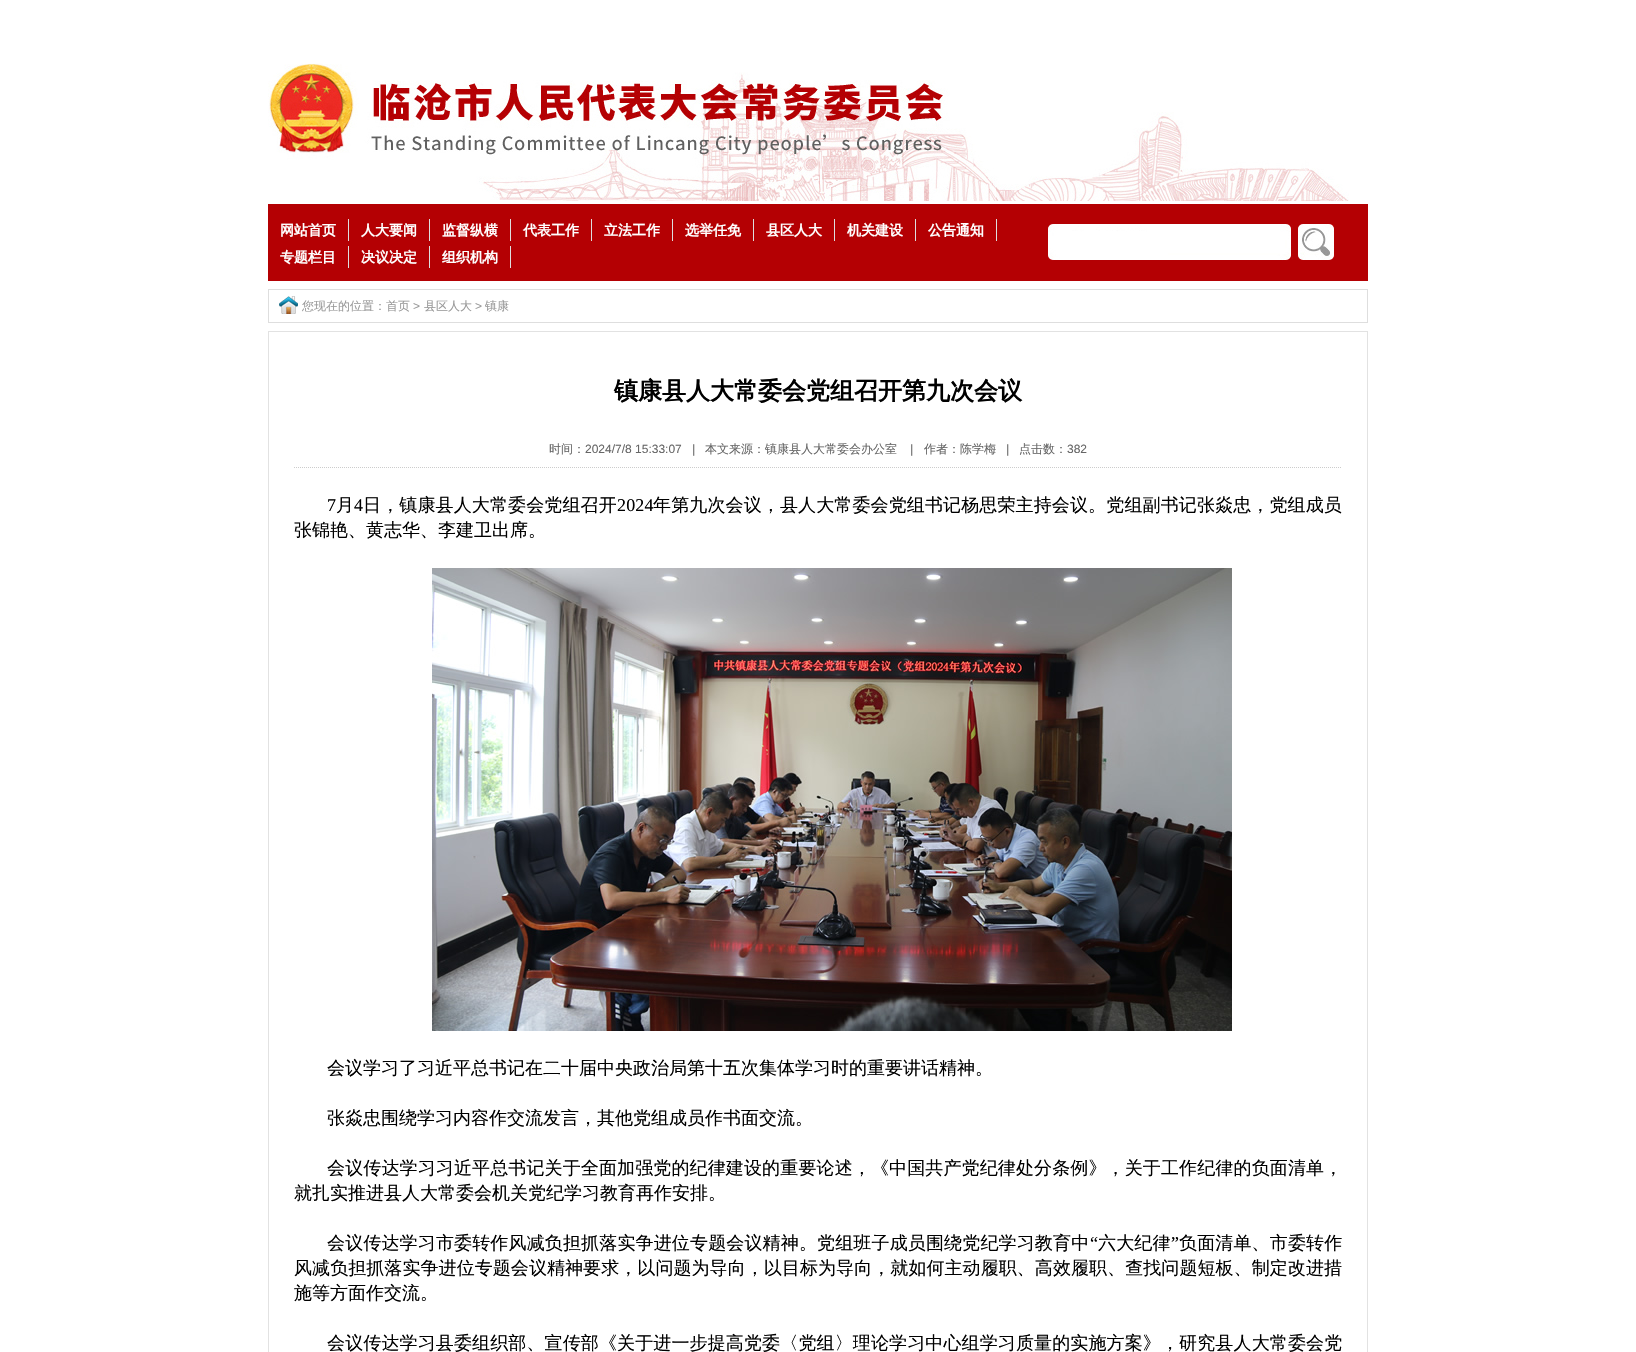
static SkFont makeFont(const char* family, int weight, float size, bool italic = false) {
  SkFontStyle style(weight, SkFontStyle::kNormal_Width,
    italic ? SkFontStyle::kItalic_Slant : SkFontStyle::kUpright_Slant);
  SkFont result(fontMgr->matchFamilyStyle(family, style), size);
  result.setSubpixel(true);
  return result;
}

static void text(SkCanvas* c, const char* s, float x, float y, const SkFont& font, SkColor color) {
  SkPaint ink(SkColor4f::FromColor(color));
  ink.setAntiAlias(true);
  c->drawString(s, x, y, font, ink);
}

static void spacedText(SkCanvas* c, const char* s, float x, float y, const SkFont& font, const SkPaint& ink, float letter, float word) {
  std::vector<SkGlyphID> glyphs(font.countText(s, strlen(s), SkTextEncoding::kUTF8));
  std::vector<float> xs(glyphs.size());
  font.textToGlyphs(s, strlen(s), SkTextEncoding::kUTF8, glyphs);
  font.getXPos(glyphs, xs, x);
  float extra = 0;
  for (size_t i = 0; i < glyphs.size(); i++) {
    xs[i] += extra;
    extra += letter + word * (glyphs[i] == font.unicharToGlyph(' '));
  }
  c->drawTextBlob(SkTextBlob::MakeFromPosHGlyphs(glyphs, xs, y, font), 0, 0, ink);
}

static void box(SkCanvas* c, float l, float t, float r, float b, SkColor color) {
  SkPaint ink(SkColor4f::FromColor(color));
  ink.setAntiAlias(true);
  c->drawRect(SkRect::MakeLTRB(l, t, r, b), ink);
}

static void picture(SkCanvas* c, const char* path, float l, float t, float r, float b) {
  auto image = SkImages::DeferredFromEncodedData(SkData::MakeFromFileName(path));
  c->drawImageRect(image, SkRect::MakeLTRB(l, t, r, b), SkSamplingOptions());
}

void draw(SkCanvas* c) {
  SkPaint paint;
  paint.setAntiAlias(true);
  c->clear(0xffffffff);
  picture(c, "img_01.png", 268, 63, 1349, 201);
  box(c, 268, 204, 1368, 281, 0xffb40003);
  box(c, 348, 219, 349, 241, 0xffdedede);
  SkFont face1 = makeFont("WenQuanYi Zen Hei", 700, 14);
  text(c, "网站首页", 280, 235, face1, 0xffffffff);
  box(c, 429, 219, 430, 241, 0xffdedede);
  text(c, "人大要闻", 361, 235, face1, 0xffffffff);
  box(c, 510, 219, 511, 241, 0xffdedede);
  text(c, "监督纵横", 442, 235, face1, 0xffffffff);
  box(c, 591, 219, 592, 241, 0xffdedede);
  text(c, "代表工作", 523, 235, face1, 0xffffffff);
  box(c, 672, 219, 673, 241, 0xffdedede);
  text(c, "立法工作", 604, 235, face1, 0xffffffff);
  box(c, 753, 219, 754, 241, 0xffdedede);
  text(c, "选举任免", 685, 235, face1, 0xffffffff);
  box(c, 834, 219, 835, 241, 0xffdedede);
  text(c, "县区人大", 766, 235, face1, 0xffffffff);
  box(c, 915, 219, 916, 241, 0xffdedede);
  text(c, "机关建设", 847, 235, face1, 0xffffffff);
  box(c, 996, 219, 997, 241, 0xffdedede);
  text(c, "公告通知", 928, 235, face1, 0xffffffff);
  box(c, 348, 246, 349, 268, 0xffdedede);
  text(c, "专题栏目", 280, 262, face1, 0xffffffff);
  box(c, 429, 246, 430, 268, 0xffdedede);
  text(c, "决议决定", 361, 262, face1, 0xffffffff);
  box(c, 510, 246, 511, 268, 0xffdedede);
  text(c, "组织机构", 442, 262, face1, 0xffffffff);
  picture(c, "img_02.png", 1048, 224, 1293, 261);
  picture(c, "img_03.png", 1298, 224, 1335, 260);
  picture(c, "img_04.png", 279, 296, 298, 314);
  paint.setStyle(SkPaint::kStroke_Style);
  paint.setStrokeWidth(1);
  paint.setColor(0xffdedede);
  c->drawRect(SkRect::MakeLTRB(268.5f, 289.5f, 1367.5f, 322.5f), paint);
  SkFont face2 = makeFont("WenQuanYi Zen Hei", 500, 12);
  text(c, "您现在的位置：首页", 302, 310, face2, 0xff999999);
  SkFont face3 = makeFont("Liberation Sans", 400, 12);
  text(c, ">", 413, 310, face3, 0xff999999);
  text(c, "县区人大", 424, 310, face2, 0xff999999);
  text(c, ">", 475, 310, face3, 0xff999999);
  text(c, "镇康", 485, 310, face2, 0xff999999);
  paint.setColor(0xffe2e2e2);
  c->drawRect(SkRect::MakeLTRB(268.5f, 331.5f, 1367.5f, 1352.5f), paint);
  SkFont face4 = makeFont("WenQuanYi Zen Hei", 700, 24);
  text(c, "镇康县人大常委会党组召开第九次会议", 614, 399, face4, 0xff000000);
  paint.setColor(0xffcccccc);
  paint.setPathEffect(SkDashPathEffect::Make({{1, 1}}, 0));
  c->drawPath(SkPathBuilder().moveTo(294, 467.5f).lineTo(1342, 467.5f).detach(), paint);
  paint.setPathEffect(nullptr);
  text(c, "时间：", 549, 453, face2, 0xff666666);
  text(c, "2024/7/8 15:33:07", 585, 453, face3, 0xff666666);
  SkFont face5 = makeFont("Liberation Sans", 400, 12, true);
  text(c, "|", 692, 453, face5, 0xff666666);
  text(c, "本文来源：镇康县人大常委会办公室", 705, 453, face2, 0xff666666);
  text(c, "|", 910, 453, face5, 0xff666666);
  text(c, "作者：陈学梅", 924, 453, face2, 0xff666666);
  text(c, "|", 1006, 453, face5, 0xff666666);
  text(c, "点击数：", 1019, 453, face2, 0xff666666);
  text(c, "382", 1067, 453, face3, 0xff666666);
  SkFont face6 = makeFont("Liberation Serif", 400, 18);
  paint.setStyle(SkPaint::kFill_Style);
  paint.setColor(0xff000000);
  spacedText(c, "7", 327, 511, face6, paint, 0.13f, 0);
  SkFont face7 = makeFont("WenQuanYi Zen Hei", 500, 18);
  spacedText(c, "月", 336, 511, face7, paint, 0.13f, 0);
  spacedText(c, "4", 354, 511, face6, paint, 0.13f, 0);
  spacedText(c, "日，镇康县人大常委会党组召开", 363, 511, face7, paint, 0.13f, 0);
  spacedText(c, "2024", 617, 511, face6, paint, 0.13f, 0);
  spacedText(c, "年第九次会议，县人大常委会党组书记杨思荣主持会议。党组副书记张焱忠，党组成员", 653, 511, face7, paint, 0.13f, 0);
  text(c, "张锦艳、黄志华、李建卫出席。", 294, 536, face7, 0xff000000);
  picture(c, "img_05.png", 432, 568, 1232, 1031);
  text(c, "会议学习了习近平总书记在二十届中央政治局第十五次集体学习时的重要讲话精神。", 327, 1074, face7, 0xff000000);
  text(c, "张焱忠围绕学习内容作交流发言，其他党组成员作书面交流。", 327, 1124, face7, 0xff000000);
  spacedText(c, "会议传达学习习近平总书记关于全面加强党的纪律建设的重要论述，《中国共产党纪律处分条例》，关于工作纪律的负面清单，", 327, 1174, face7, paint, 0.13f, 0);
  text(c, "就扎实推进县人大常委会机关党纪学习教育再作安排。", 294, 1199, face7, 0xff000000);
  spacedText(c, "会议传达学习市委转作风减负担抓落实争进位专题会议精神。党组班子成员围绕党纪学习教育中", 327, 1249, face7, paint, 0.15f, 0);
  spacedText(c, "“", 1090, 1249, face6, paint, 0.15f, 0);
  spacedText(c, "六大纪律", 1098, 1249, face7, paint, 0.15f, 0);
  spacedText(c, "”", 1171, 1249, face6, paint, 0.15f, 0);
  spacedText(c, "负面清单、市委转作", 1179, 1249, face7, paint, 0.15f, 0);
  spacedText(c, "风减负担抓落实争进位专题会议精神要求，以问题为导向，以目标为导向，就如何主动履职、高效履职、查找问题短板、制定改进措", 294, 1274, face7, paint, 0.07f, 0);
  text(c, "施等方面作交流。", 294, 1299, face7, 0xff000000);
  spacedText(c, "会议传达学习县委组织部、宣传部《关于进一步提高党委〈党组〉理论学习中心组学习质量的实施方案》，研究县人大常委会党", 327, 1349, face7, paint, 0.13f, 0);
}
